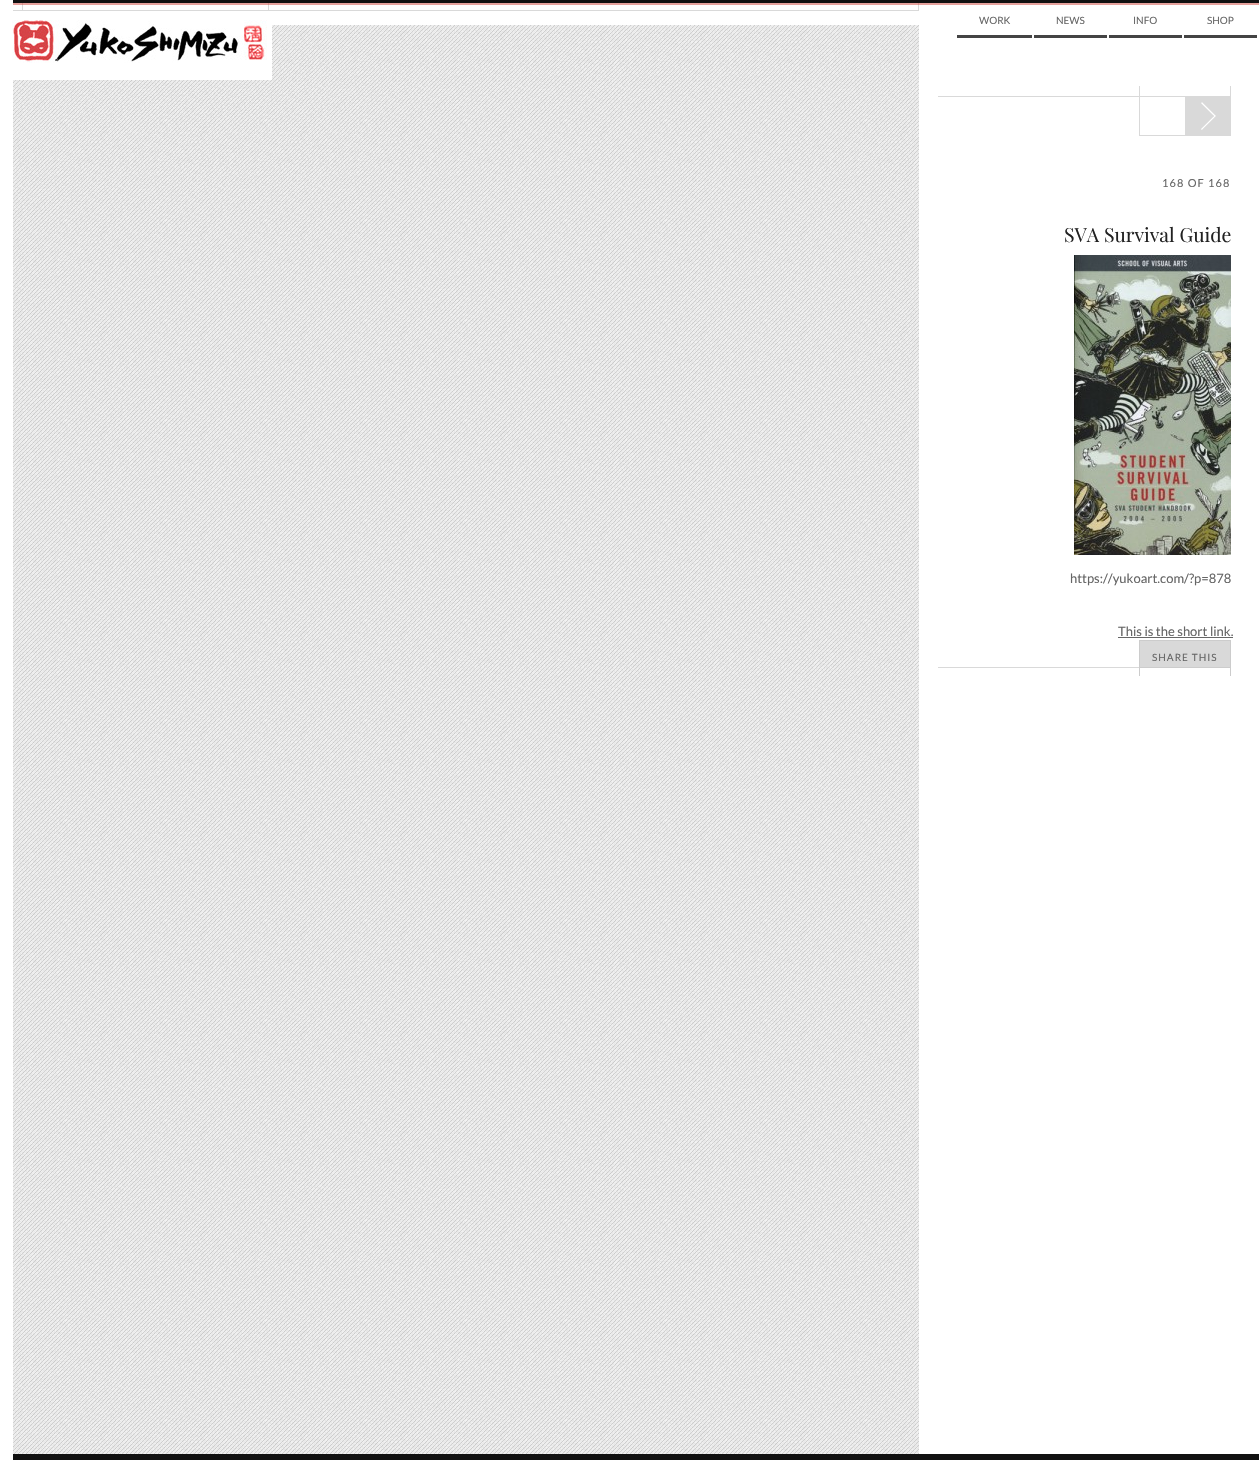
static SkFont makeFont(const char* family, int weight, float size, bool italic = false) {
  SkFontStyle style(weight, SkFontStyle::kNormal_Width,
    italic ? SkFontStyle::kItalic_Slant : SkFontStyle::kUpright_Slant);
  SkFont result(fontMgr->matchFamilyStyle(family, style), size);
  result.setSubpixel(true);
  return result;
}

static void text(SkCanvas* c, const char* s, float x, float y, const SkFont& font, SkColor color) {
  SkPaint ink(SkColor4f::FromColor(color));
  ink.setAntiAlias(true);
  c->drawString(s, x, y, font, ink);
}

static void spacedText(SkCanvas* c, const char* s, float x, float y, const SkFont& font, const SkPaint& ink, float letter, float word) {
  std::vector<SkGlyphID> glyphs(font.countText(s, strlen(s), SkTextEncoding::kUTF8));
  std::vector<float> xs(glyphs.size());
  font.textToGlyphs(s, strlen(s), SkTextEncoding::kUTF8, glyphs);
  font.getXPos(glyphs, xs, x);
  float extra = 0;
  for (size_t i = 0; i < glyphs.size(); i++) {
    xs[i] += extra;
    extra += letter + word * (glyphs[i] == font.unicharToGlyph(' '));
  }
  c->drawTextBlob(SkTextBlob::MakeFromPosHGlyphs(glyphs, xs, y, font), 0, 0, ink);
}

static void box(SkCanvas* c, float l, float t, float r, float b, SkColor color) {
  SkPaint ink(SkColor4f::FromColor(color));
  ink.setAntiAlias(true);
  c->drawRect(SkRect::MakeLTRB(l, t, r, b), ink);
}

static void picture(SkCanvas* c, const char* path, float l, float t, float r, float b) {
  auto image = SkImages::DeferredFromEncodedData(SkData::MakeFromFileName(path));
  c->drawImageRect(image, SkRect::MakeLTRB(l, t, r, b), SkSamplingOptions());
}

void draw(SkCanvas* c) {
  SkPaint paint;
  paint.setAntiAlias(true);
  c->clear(0xffffffff);
  box(c, 13, 3, 1259, 5, 0xffe6a19c);
  box(c, 268, 0, 269, 10, 0xffd9d9d9);
  box(c, 22, 0, 23, 10, 0xffd9d9d9);
  box(c, 918, 0, 919, 10, 0xffd9d9d9);
  box(c, 13, 0, 1259, 3, 0xff111111);
  picture(c, "img_02.png", 13, 25, 919, 1454);
  box(c, 13, 25, 272, 80, 0xffffffff);
  picture(c, "img_01.png", 12, 20, 267, 63);
  box(c, 957, 35, 1032, 38, 0xff444444);
  SkFont face1 = makeFont("Lato", 400, 10);
  text(c, "WORK", 979, 24, face1, 0xff666666);
  box(c, 1034, 35, 1107, 38, 0xff444444);
  text(c, "NEWS", 1056, 24, face1, 0xff666666);
  box(c, 1109, 35, 1182, 38, 0xff444444);
  text(c, "INFO", 1133, 24, face1, 0xff666666);
  box(c, 1184, 35, 1257, 38, 0xff444444);
  text(c, "SHOP", 1207, 24, face1, 0xff666666);
  box(c, 13, 10, 919, 11, 0xffd9d9d9);
  box(c, 268, 3, 269, 5, 0xffd38e89);
  box(c, 22, 3, 23, 5, 0xffd38e89);
  box(c, 918, 3, 919, 5, 0xffd38e89);
  box(c, 938, 96, 1139, 97, 0xffd9d9d9);
  box(c, 1230, 86, 1231, 136, 0xffd9d9d9);
  box(c, 1139, 96, 1231, 97, 0xffd9d9d9);
  box(c, 1139, 86, 1140, 97, 0xffd9d9d9);
  box(c, 1139, 135, 1231, 136, 0xffd9d9d9);
  box(c, 1139, 97, 1140, 136, 0xffd9d9d9);
  box(c, 1185, 97, 1230, 135, 0xffd9d9d9);
  picture(c, "img_03.png", 1201, 102, 1216, 130);
  SkFont face2 = makeFont("Lato", 400, 11);
  paint.setColor(0xff666666);
  spacedText(c, "168 OF 168", 1162, 187, face2, paint, 1.1f, 0);
  SkFont face3 = makeFont("Playfair Display", 400, 19.5f);
  text(c, "SVA Survival Guide", 1064, 242, face3, 0xff222222);
  picture(c, "img_04.png", 1074, 255, 1231, 555);
  SkFont face4 = makeFont("Lato", 400, 13);
  text(c, "https://yukoart.com/?p=878", 1070, 583, face4, 0xff666666);
  text(c, "This is the short link.", 1118, 636, face4, 0xff666666);
  box(c, 1118, 637, 1233, 638, 0xff666666);
  box(c, 1139, 640, 1231, 641, 0xffcccccc);
  box(c, 1230, 640, 1231, 667, 0xffcccccc);
  box(c, 1139, 640, 1140, 667, 0xffcccccc);
  box(c, 1140, 641, 1230, 667, 0xffd9d9d9);
  spacedText(c, "SHARE THIS", 1152, 661, face1, paint, 1, 0);
  box(c, 938, 667, 1139, 668, 0xffd9d9d9);
  box(c, 1139, 667, 1231, 668, 0xffcccccc);
  box(c, 1230, 667, 1231, 678, 0xffcccccc);
  box(c, 1139, 667, 1140, 678, 0xffcccccc);
  box(c, 1139, 676, 1231, 678, 0xffffffff);
  box(c, 13, 1454, 1259, 1460, 0xff111111);
}
